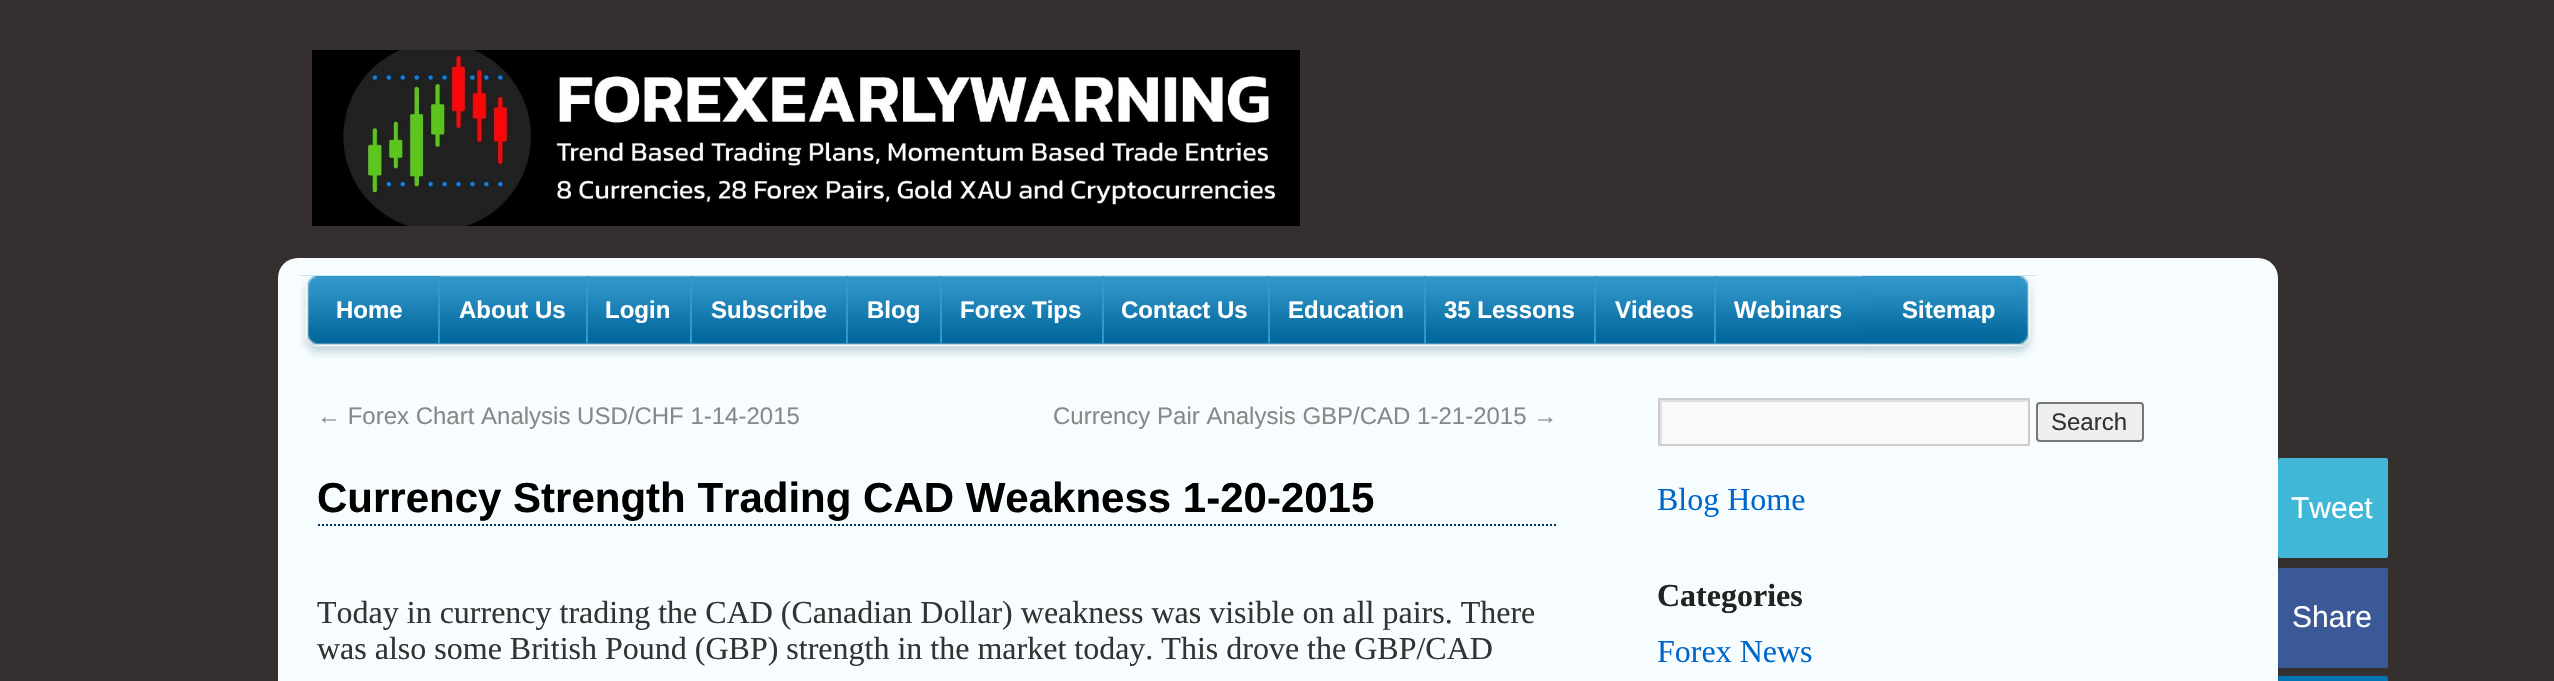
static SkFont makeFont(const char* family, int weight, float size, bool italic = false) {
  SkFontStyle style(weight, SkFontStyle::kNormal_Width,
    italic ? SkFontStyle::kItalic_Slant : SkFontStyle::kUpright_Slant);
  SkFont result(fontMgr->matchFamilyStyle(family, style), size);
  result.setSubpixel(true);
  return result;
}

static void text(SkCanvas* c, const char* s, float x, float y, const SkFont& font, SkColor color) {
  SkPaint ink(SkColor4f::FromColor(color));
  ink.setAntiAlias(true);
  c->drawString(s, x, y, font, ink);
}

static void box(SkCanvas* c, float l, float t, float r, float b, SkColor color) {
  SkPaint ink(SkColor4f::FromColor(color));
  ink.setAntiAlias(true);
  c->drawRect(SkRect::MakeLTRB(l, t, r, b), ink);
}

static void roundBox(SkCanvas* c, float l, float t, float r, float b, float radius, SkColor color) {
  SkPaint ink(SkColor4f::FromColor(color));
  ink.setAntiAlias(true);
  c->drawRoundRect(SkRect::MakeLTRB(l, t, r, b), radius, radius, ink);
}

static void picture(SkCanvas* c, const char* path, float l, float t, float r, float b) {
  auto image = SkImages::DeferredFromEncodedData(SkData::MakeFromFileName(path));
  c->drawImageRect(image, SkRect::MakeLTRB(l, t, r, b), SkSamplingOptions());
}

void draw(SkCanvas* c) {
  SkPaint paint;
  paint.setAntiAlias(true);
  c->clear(0xff362f2f);
  picture(c, "img_01.png", 312, 50, 1300, 226);
  roundBox(c, 278, 258, 2278, 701, 20, 0xfff7fdff);
  picture(c, "img_02.png", 300, 274, 2036, 358);
  picture(c, "img_03.png", 300, 276, 438, 358);
  SkFont face1 = makeFont("Liberation Sans", 700, 24);
  text(c, "Home", 336, 318, face1, 0xffffffff);
  box(c, 438, 276, 440, 344, 0xff3297cb);
  text(c, "About Us", 459, 318, face1, 0xffffffff);
  box(c, 586, 276, 588, 344, 0xff3297cb);
  text(c, "Login", 605, 318, face1, 0xffffffff);
  box(c, 690, 276, 692, 344, 0xff3297cb);
  text(c, "Subscribe", 711, 318, face1, 0xffffffff);
  box(c, 846, 276, 848, 344, 0xff3297cb);
  text(c, "Blog", 867, 318, face1, 0xffffffff);
  box(c, 940, 276, 942, 344, 0xff3297cb);
  text(c, "Forex Tips", 960, 318, face1, 0xffffffff);
  box(c, 1102, 276, 1104, 344, 0xff3297cb);
  text(c, "Contact Us", 1121, 318, face1, 0xffffffff);
  box(c, 1268, 276, 1270, 344, 0xff3297cb);
  text(c, "Education", 1288, 318, face1, 0xffffffff);
  box(c, 1424, 276, 1426, 344, 0xff3297cb);
  text(c, "35 Lessons", 1444, 318, face1, 0xffffffff);
  box(c, 1594, 276, 1596, 344, 0xff3297cb);
  text(c, "Videos", 1615, 318, face1, 0xffffffff);
  box(c, 1714, 276, 1716, 344, 0xff3297cb);
  text(c, "Webinars", 1734, 318, face1, 0xffffffff);
  picture(c, "img_04.png", 1862, 276, 2036, 358);
  text(c, "Sitemap", 1902, 318, face1, 0xffffffff);
  SkFont face2 = makeFont("Liberation Sans", 400, 24);
  text(c, "← Forex Chart Analysis USD/CHF 1-14-2015", 317, 424, face2, 0xff888888);
  text(c, "Currency Pair Analysis GBP/CAD 1-21-2015 →", 1053, 424, face2, 0xff888888);
  paint.setStyle(SkPaint::kStroke_Style);
  paint.setStrokeWidth(2);
  paint.setColor(0xff003366);
  paint.setPathEffect(SkDashPathEffect::Make({{2, 2}}, 0));
  c->drawPath(SkPathBuilder().moveTo(318, 525).lineTo(1558, 525).detach(), paint);
  paint.setPathEffect(nullptr);
  SkFont face3 = makeFont("Liberation Sans", 700, 42);
  text(c, "Currency Strength Trading CAD Weakness 1-20-2015", 317, 512, face3, 0xff000000);
  SkFont face4 = makeFont("Liberation Serif", 400, 32);
  text(c, "Today in currency trading the CAD (Canadian Dollar) weakness was visible on all pairs. There", 317, 623, face4, 0xff333333);
  text(c, "was also some British Pound (GBP) strength in the market today. This drove the GBP/CAD", 317, 659, face4, 0xff333333);
  box(c, 1662, 402, 2028, 444, 0xfff9f9f9);
  c->save();
  c->clipRect(SkRect::MakeLTRB(1660, 400, 2028, 444));
  paint.setStyle(SkPaint::kFill_Style);
  paint.setColor(0xffe0e0e0);
  c->drawPath(SkPathBuilder(SkPathFillType::kEvenOdd).moveTo(1462, 202).lineTo(2226, 202).lineTo(2226, 642).lineTo(1462, 642).close().moveTo(1662, 402).lineTo(2030, 402).lineTo(2030, 446).lineTo(1662, 446).close().detach(), paint);
  c->restore();
  paint.setStyle(SkPaint::kStroke_Style);
  paint.setColor(0xffcccccc);
  c->drawRect(SkRect::MakeLTRB(1659, 399, 2029, 445), paint);
  paint.setStyle(SkPaint::kFill_Style);
  paint.setColor(0xffefefef);
  c->drawRoundRect(SkRect::MakeLTRB(2037, 403, 2143, 441), 3, 3, paint);
  paint.setStyle(SkPaint::kStroke_Style);
  paint.setColor(0xff767676);
  c->drawRoundRect(SkRect::MakeLTRB(2037, 403, 2143, 441), 3, 3, paint);
  text(c, "Search", 2051, 430, face2, 0xff333333);
  text(c, "Blog Home", 1657, 510, face4, 0xff0066cc);
  SkFont face5 = makeFont("Liberation Serif", 700, 32);
  text(c, "Categories", 1657, 606, face5, 0xff222222);
  text(c, "Forex News", 1657, 662, face4, 0xff0066cc);
  roundBox(c, 2278, 458, 2388, 558, 2, 0xff41b7d8);
  SkFont face6 = makeFont("Liberation Sans", 400, 30);
  text(c, "Tweet", 2291, 518, face6, 0xffffffff);
  roundBox(c, 2278, 568, 2388, 668, 2, 0xff3b5997);
  text(c, "Share", 2292, 627, face6, 0xffffffff);
  roundBox(c, 2278, 676, 2388, 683, 2, 0xff0073b2);
}
